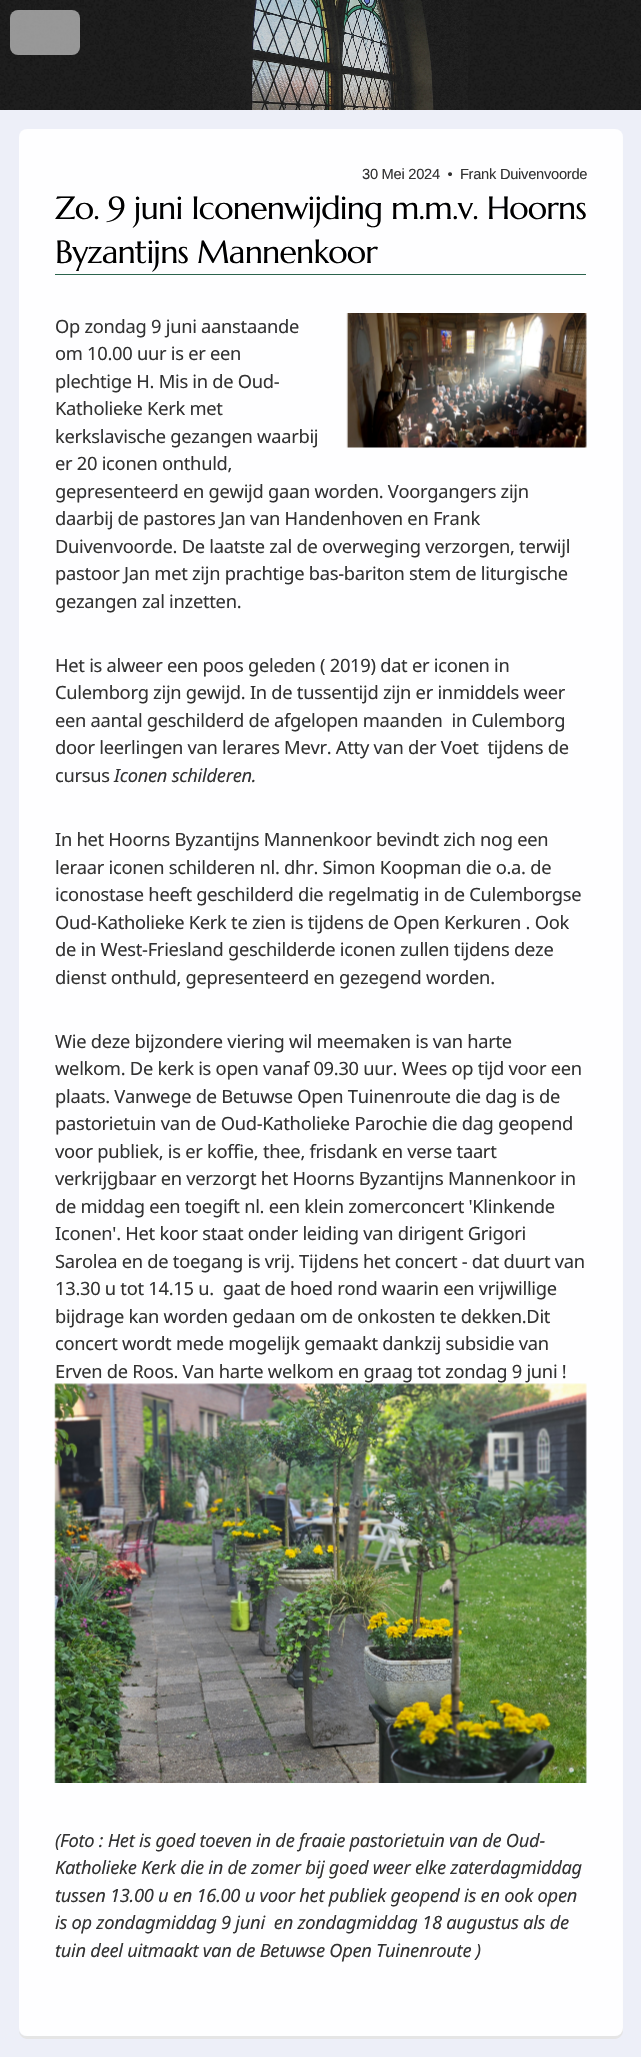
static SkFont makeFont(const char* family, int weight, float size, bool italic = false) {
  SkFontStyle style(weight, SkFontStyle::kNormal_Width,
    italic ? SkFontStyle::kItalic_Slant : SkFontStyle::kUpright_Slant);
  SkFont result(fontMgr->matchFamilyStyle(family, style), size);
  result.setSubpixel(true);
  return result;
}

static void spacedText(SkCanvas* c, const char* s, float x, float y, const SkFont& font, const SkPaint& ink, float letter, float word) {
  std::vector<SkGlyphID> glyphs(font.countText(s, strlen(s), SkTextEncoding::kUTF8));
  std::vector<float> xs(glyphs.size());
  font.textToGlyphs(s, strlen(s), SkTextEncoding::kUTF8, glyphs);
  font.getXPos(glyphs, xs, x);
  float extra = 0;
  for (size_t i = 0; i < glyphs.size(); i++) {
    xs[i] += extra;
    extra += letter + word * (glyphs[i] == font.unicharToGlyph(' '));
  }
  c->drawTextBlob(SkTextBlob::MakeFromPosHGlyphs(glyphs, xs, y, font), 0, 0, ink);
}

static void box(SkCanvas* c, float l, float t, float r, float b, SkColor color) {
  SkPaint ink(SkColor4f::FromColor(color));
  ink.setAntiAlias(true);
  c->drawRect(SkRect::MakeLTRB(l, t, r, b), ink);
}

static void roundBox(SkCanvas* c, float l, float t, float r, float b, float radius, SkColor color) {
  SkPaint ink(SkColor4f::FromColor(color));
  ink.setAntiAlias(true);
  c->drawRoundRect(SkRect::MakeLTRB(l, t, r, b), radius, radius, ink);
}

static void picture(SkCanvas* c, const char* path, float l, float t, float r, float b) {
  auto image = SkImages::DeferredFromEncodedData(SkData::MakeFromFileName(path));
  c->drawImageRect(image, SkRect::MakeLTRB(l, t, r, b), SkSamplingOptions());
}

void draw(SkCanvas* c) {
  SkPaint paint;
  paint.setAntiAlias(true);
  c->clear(0xffedeff8);
  picture(c, "img_01.png", 0, 0, 641, 110);
  roundBox(c, 10, 10, 80, 55, 8, 0xbfc0c0c0);
  paint.setColor(0xffe5e5e5);
  c->drawPath(SkPathBuilder().moveTo(19, 2031).cubicTo(19, 2035, 23, 2039, 27, 2039).lineTo(615, 2039).cubicTo(619, 2039, 623, 2035, 623, 2031).lineTo(623, 139).lineTo(622, 136).lineTo(622, 2029).cubicTo(622, 2033, 619, 2036, 615, 2036).lineTo(26, 2036).cubicTo(23, 2036, 20, 2034, 19, 2031).close().detach(), paint);
  roundBox(c, 19, 129, 623, 2036, 8, 0xe6ffffff);
  SkFont face1 = makeFont("Liberation Sans", 400, 14.7f);
  paint.setColor(0xff333333);
  spacedText(c, "30 Mei 2024  •  Frank Duivenvoorde", 362, 179, face1, paint, -0.28f, 0);
  box(c, 55, 274, 586, 275, 0xff2b634d);
  SkFont face2 = makeFont("Marcellus", 400, 32.1f);
  paint.setColor(0xff000000);
  spacedText(c, "Zo. 9 juni Iconenwijding m.m.v. Hoorns", 55, 219, face2, paint, -0.8f, 0);
  spacedText(c, "Byzantijns Mannenkoor", 55, 263, face2, paint, -0.8f, 0);
  picture(c, "img_02.png", 346, 313, 587, 448);
  SkFont face3 = makeFont("Noto Sans", 400, 18.3f);
  paint.setColor(0xff333333);
  spacedText(c, "Op zondag 9 juni aanstaande", 55, 333, face3, paint, -0.28f, 0);
  spacedText(c, "om 10.00 uur is er een", 55, 360, face3, paint, -0.28f, 0);
  spacedText(c, "plechtige H. Mis in de Oud-", 55, 388, face3, paint, -0.28f, 0);
  spacedText(c, "Katholieke Kerk met", 55, 415, face3, paint, -0.28f, 0);
  spacedText(c, "kerkslavische gezangen waarbij", 55, 443, face3, paint, -0.28f, 0);
  spacedText(c, "er 20 iconen onthuld,", 55, 470, face3, paint, -0.28f, 0);
  spacedText(c, "gepresenteerd en gewijd gaan worden. Voorgangers zijn", 55, 498, face3, paint, -0.28f, 0);
  spacedText(c, "daarbij de pastores Jan van Handenhoven en Frank", 55, 525, face3, paint, -0.28f, 0);
  spacedText(c, "Duivenvoorde. De laatste zal de overweging verzorgen, terwijl", 55, 553, face3, paint, -0.28f, 0);
  spacedText(c, "pastoor Jan met zijn prachtige bas-bariton stem de liturgische", 55, 580, face3, paint, -0.28f, 0);
  spacedText(c, "gezangen zal inzetten.", 55, 608, face3, paint, -0.28f, 0);
  spacedText(c, "Het is alweer een poos geleden ( 2019) dat er iconen in", 55, 672, face3, paint, -0.28f, 0);
  spacedText(c, "Culemborg zijn gewijd. In de tussentijd zijn er inmiddels weer", 55, 699, face3, paint, -0.28f, 0);
  spacedText(c, "een aantal geschilderd de afgelopen maanden  in Culemborg", 55, 727, face3, paint, -0.28f, 0);
  spacedText(c, "door leerlingen van lerares Mevr. Atty van der Voet  tijdens de", 55, 754, face3, paint, -0.28f, 0);
  spacedText(c, "cursus", 55, 782, face3, paint, -0.28f, 0);
  SkFont face4 = makeFont("Noto Sans", 400, 18.3f, true);
  spacedText(c, "Iconen schilderen.", 114, 782, face4, paint, -0.28f, 0);
  spacedText(c, "In het Hoorns Byzantijns Mannenkoor bevindt zich nog een", 55, 846, face3, paint, -0.28f, 0);
  spacedText(c, "leraar iconen schilderen nl. dhr. Simon Koopman die o.a. de", 55, 874, face3, paint, -0.28f, 0);
  spacedText(c, "iconostase heeft geschilderd die regelmatig in de Culemborgse", 55, 901, face3, paint, -0.28f, 0);
  spacedText(c, "Oud-Katholieke Kerk te zien is tijdens de Open Kerkuren . Ook", 55, 929, face3, paint, -0.28f, 0);
  spacedText(c, "de in West-Friesland geschilderde iconen zullen tijdens deze", 55, 956, face3, paint, -0.28f, 0);
  spacedText(c, "dienst onthuld, gepresenteerd en gezegend worden.", 55, 984, face3, paint, -0.28f, 0);
  spacedText(c, "Wie deze bijzondere viering wil meemaken is van harte", 55, 1048, face3, paint, -0.28f, 0);
  spacedText(c, "welkom. De kerk is open vanaf 09.30 uur. Wees op tijd voor een", 55, 1075, face3, paint, -0.28f, 0);
  spacedText(c, "plaats. Vanwege de Betuwse Open Tuinenroute die dag is de", 55, 1103, face3, paint, -0.28f, 0);
  spacedText(c, "pastorietuin van de Oud-Katholieke Parochie die dag geopend", 55, 1130, face3, paint, -0.28f, 0);
  spacedText(c, "voor publiek, is er koffie, thee, frisdank en verse taart", 55, 1158, face3, paint, -0.28f, 0);
  spacedText(c, "verkrijgbaar en verzorgt het Hoorns Byzantijns Mannenkoor in", 55, 1185, face3, paint, -0.28f, 0);
  spacedText(c, "de middag een toegift nl. een klein zomerconcert 'Klinkende", 55, 1213, face3, paint, -0.28f, 0);
  spacedText(c, "Iconen'. Het koor staat onder leiding van dirigent Grigori", 55, 1240, face3, paint, -0.28f, 0);
  spacedText(c, "Sarolea en de toegang is vrij. Tijdens het concert - dat duurt van", 55, 1268, face3, paint, -0.28f, 0);
  spacedText(c, "13.30 u tot 14.15 u.  gaat de hoed rond waarin een vrijwillige", 55, 1295, face3, paint, -0.28f, 0);
  spacedText(c, "bijdrage kan worden gedaan om de onkosten te dekken.Dit", 55, 1323, face3, paint, -0.28f, 0);
  spacedText(c, "concert wordt mede mogelijk gemaakt dankzij subsidie van", 55, 1350, face3, paint, -0.28f, 0);
  spacedText(c, "Erven de Roos. Van harte welkom en graag tot zondag 9 juni !", 55, 1378, face3, paint, -0.28f, 0);
  picture(c, "img_03.png", 54, 1383, 587, 1783);
  spacedText(c, "(Foto : Het is goed toeven in de fraaie pastorietuin van de Oud-", 55, 1847, face4, paint, -0.28f, 0);
  spacedText(c, "Katholieke Kerk die in de zomer bij goed weer elke zaterdagmiddag", 55, 1874, face4, paint, -0.28f, 0);
  spacedText(c, "tussen 13.00 u en 16.00 u voor het publiek geopend is en ook open", 55, 1902, face4, paint, -0.28f, 0);
  spacedText(c, "is op zondagmiddag 9 juni  en zondagmiddag 18 augustus als de", 55, 1929, face4, paint, -0.28f, 0);
  spacedText(c, "tuin deel uitmaakt van de Betuwse Open Tuinenroute )", 55, 1957, face4, paint, -0.28f, 0);
}
